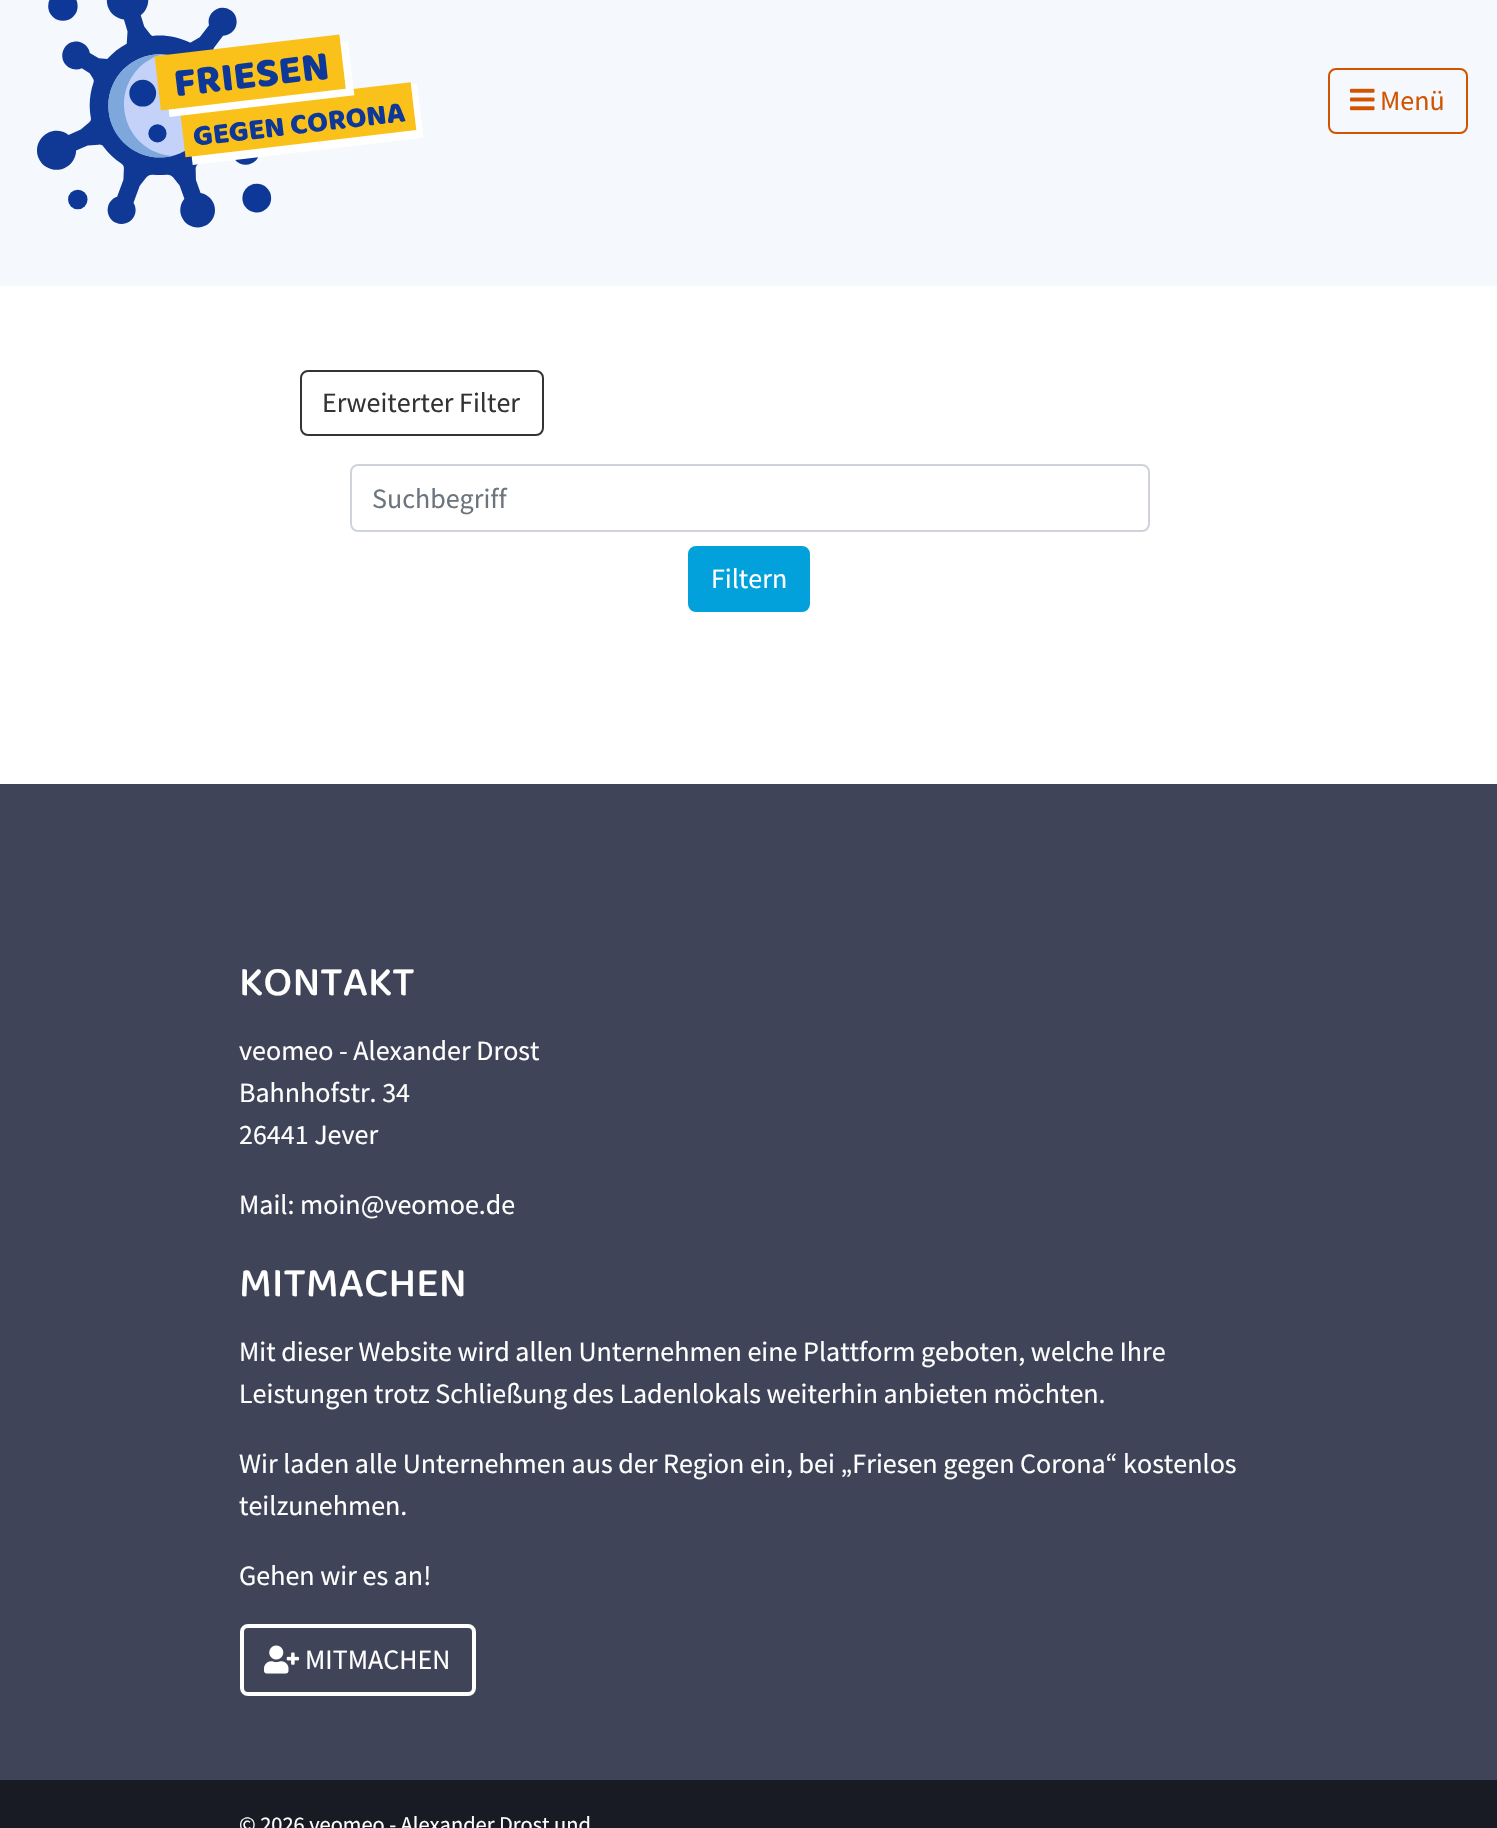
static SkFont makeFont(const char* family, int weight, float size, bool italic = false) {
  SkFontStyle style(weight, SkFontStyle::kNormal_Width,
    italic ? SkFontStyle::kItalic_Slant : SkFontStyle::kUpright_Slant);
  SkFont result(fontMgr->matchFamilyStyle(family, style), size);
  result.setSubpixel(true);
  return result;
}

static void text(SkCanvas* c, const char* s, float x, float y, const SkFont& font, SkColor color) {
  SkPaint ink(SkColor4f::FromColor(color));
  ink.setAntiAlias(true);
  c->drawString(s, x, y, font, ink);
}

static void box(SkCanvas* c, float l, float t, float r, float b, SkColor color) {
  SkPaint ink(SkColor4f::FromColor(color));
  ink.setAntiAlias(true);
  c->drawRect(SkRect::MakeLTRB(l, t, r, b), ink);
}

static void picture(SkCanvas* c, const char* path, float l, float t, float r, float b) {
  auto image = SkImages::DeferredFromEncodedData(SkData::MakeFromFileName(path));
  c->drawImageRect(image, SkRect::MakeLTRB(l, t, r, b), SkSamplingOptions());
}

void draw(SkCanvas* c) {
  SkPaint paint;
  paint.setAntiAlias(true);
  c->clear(0xffffffff);
  box(c, 0, 0, 1497, 286, 0xfff5f8fd);
  picture(c, "img_01.png", 37, 0, 423, 228);
  paint.setStyle(SkPaint::kStroke_Style);
  paint.setStrokeWidth(2);
  paint.setColor(0xffd35400);
  c->drawRoundRect(SkRect::MakeLTRB(1329, 69, 1467, 133), 7, 7, paint);
  picture(c, "img_02.png", 1350, 88, 1375, 111);
  SkFont face1 = makeFont("Source Sans Pro", 400, 28);
  text(c, "Menü", 1380, 110, face1, 0xffd35400);
  paint.setColor(0xff333333);
  c->drawRoundRect(SkRect::MakeLTRB(301, 371, 543, 435), 7, 7, paint);
  text(c, "Erweiterter Filter", 322, 412, face1, 0xff333333);
  paint.setColor(0xffced4da);
  c->drawRoundRect(SkRect::MakeLTRB(351, 465, 1149, 531), 7, 7, paint);
  text(c, "Suchbegriff", 372, 508, face1, 0xff6c757d);
  paint.setStyle(SkPaint::kFill_Style);
  paint.setColor(0xff02a1db);
  c->drawRoundRect(SkRect::MakeLTRB(689, 547, 809, 611), 7, 7, paint);
  paint.setStyle(SkPaint::kStroke_Style);
  c->drawRoundRect(SkRect::MakeLTRB(689, 547, 809, 611), 7, 7, paint);
  text(c, "Filtern", 711, 588, face1, 0xffffffff);
  box(c, 0, 784, 1497, 1780, 0xff404459);
  SkFont face2 = makeFont("Baloo 2", 500, 42);
  text(c, "KONTAKT", 239, 995, face2, 0xffffffff);
  text(c, "veomeo - Alexander Drost", 239, 1060, face1, 0xffffffff);
  text(c, "Bahnhofstr. 34", 239, 1102, face1, 0xffffffff);
  text(c, "26441 Jever", 239, 1144, face1, 0xffffffff);
  text(c, "Mail: moin@veomoe.de", 239, 1214, face1, 0xffffffff);
  text(c, "MITMACHEN", 239, 1296, face2, 0xffffffff);
  text(c, "Mit dieser Website wird allen Unternehmen eine Plattform geboten, welche Ihre", 239, 1361, face1, 0xffffffff);
  text(c, "Leistungen trotz Schließung des Ladenlokals weiterhin anbieten möchten.", 239, 1403, face1, 0xffffffff);
  text(c, "Wir laden alle Unternehmen aus der Region ein, bei „Friesen gegen Corona“ kostenlos", 239, 1473, face1, 0xffffffff);
  text(c, "teilzunehmen.", 239, 1515, face1, 0xffffffff);
  text(c, "Gehen wir es an!", 239, 1585, face1, 0xffffffff);
  paint.setStrokeWidth(4);
  paint.setColor(0xffffffff);
  c->drawRoundRect(SkRect::MakeLTRB(242, 1626, 474, 1694), 6, 6, paint);
  picture(c, "img_03.png", 264, 1645, 299, 1674);
  text(c, "MITMACHEN", 305, 1669, face1, 0xffffffff);
  box(c, 0, 1780, 1497, 1828, 0xff191b24);
  SkFont face3 = makeFont("Source Sans Pro", 400, 22.4f);
  text(c, "© 2026 veomeo - Alexander Drost und", 239, 1832, face3, 0xffffffff);
}
